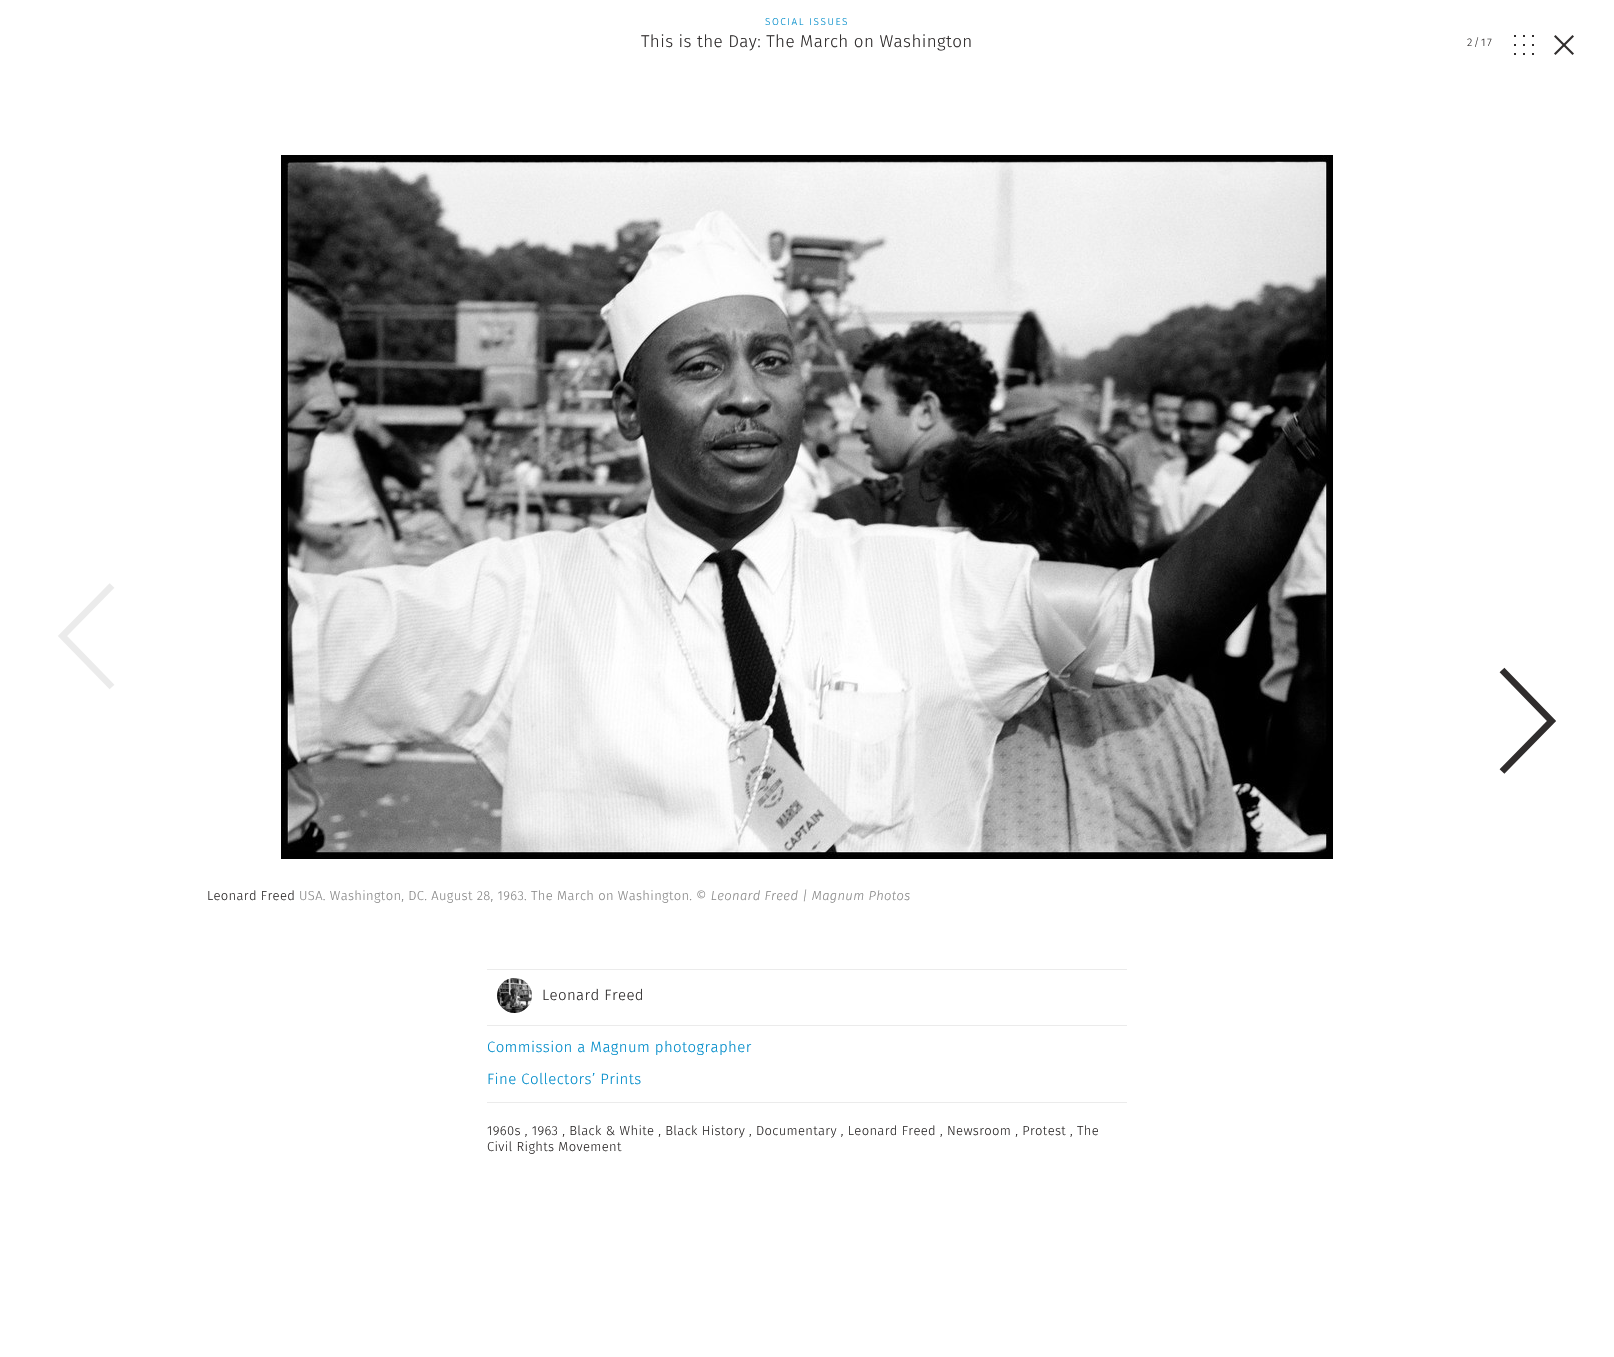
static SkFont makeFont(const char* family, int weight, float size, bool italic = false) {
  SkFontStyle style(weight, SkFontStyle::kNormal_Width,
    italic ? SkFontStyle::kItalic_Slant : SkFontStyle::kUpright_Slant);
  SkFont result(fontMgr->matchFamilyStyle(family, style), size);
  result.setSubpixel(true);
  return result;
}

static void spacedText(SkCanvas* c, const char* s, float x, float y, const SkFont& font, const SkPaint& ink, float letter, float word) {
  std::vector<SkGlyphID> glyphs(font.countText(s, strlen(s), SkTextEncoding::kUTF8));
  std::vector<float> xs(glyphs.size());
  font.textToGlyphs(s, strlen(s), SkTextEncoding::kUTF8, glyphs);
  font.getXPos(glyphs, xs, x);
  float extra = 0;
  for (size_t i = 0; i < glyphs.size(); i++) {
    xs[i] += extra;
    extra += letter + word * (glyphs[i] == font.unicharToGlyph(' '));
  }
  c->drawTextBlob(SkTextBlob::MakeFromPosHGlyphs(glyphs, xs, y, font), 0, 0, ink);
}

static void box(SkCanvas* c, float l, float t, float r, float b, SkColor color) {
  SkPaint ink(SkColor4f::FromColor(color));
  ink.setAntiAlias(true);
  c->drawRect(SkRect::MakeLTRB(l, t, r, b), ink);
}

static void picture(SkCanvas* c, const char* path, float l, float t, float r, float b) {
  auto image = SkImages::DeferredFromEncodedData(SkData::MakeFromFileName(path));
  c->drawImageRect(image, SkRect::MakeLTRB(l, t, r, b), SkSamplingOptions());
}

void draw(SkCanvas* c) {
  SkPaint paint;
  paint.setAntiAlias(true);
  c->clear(0xffffffff);
  SkFont face1 = makeFont("Fira Sans", 300, 10);
  paint.setColor(0xff008cca);
  spacedText(c, "SOCIAL ISSUES", 765, 25, face1, paint, 1.5f, 0);
  SkFont face2 = makeFont("Fira Sans", 300, 17);
  paint.setColor(0xff302d2d);
  spacedText(c, "This is the Day: The March on Washington", 641, 47, face2, paint, 0.4f, 0);
  SkFont face3 = makeFont("Fira Sans", 300, 11);
  spacedText(c, "2/17", 1467, 46, face3, paint, 1.5f, 0);
  picture(c, "img_01.png", 1514, 35, 1534, 55);
  c->drawPath(SkPathBuilder().moveTo(1555.5f, 35).lineTo(1574, 53.5f).lineTo(1572.5f, 55).lineTo(1554, 36.5f).close().detach(), paint);
  c->drawPath(SkPathBuilder().moveTo(1554, 53.5f).lineTo(1572.5f, 35).lineTo(1574, 36.5f).lineTo(1555.5f, 55).close().detach(), paint);
  paint.setStyle(SkPaint::kStroke_Style);
  paint.setStrokeWidth(6.7f);
  paint.setColor(0xffebebeb);
  c->drawPath(SkPathBuilder().moveTo(112, 585.5f).lineTo(62.5f, 636).lineTo(112, 687).detach(), paint);
  paint.setColor(0xff302d2d);
  c->drawPath(SkPathBuilder().moveTo(1502, 771.5f).lineTo(1551.5f, 721).lineTo(1502, 670).detach(), paint);
  box(c, 281, 155, 1333, 859, 0xff000000);
  picture(c, "img_02.png", 282, 155, 1329, 858);
  SkFont face4 = makeFont("Fira Sans", 300, 13);
  paint.setStyle(SkPaint::kFill_Style);
  spacedText(c, "Leonard Freed", 207, 900, face4, paint, 0.33f, 0);
  paint.setColor(0xff898989);
  spacedText(c, "USA. Washington, DC. August 28, 1963. The March on Washington.", 299, 900, face4, paint, 0.33f, 0);
  SkFont face5 = makeFont("Fira Sans", 300, 13, true);
  spacedText(c, "© Leonard Freed | Magnum Photos", 696, 900, face5, paint, 0.33f, 0);
  box(c, 487, 969, 1127, 970, 0xffebebeb);
  picture(c, "img_03.png", 497, 978, 532, 1013);
  SkFont face6 = makeFont("Fira Sans", 300, 15);
  paint.setColor(0xff302d2d);
  spacedText(c, "Leonard Freed", 542, 1000, face6, paint, 0.4f, 0);
  box(c, 487, 1025, 1127, 1026, 0xffebebeb);
  paint.setColor(0xff008cca);
  spacedText(c, "Commission a Magnum photographer", 487, 1052, face6, paint, 0.4f, 0);
  spacedText(c, "Fine Collectors’ Prints", 487, 1084, face6, paint, 0.4f, 0);
  box(c, 487, 1102, 1127, 1103, 0xffebebeb);
  paint.setColor(0xff302d2d);
  spacedText(c, "1960s , 1963 , Black & White , Black History , Documentary , Leonard Freed , Newsroom , Protest , The", 487, 1135, face4, paint, 0.33f, 0);
  spacedText(c, "Civil Rights Movement", 487, 1151, face4, paint, 0.33f, 0);
}
